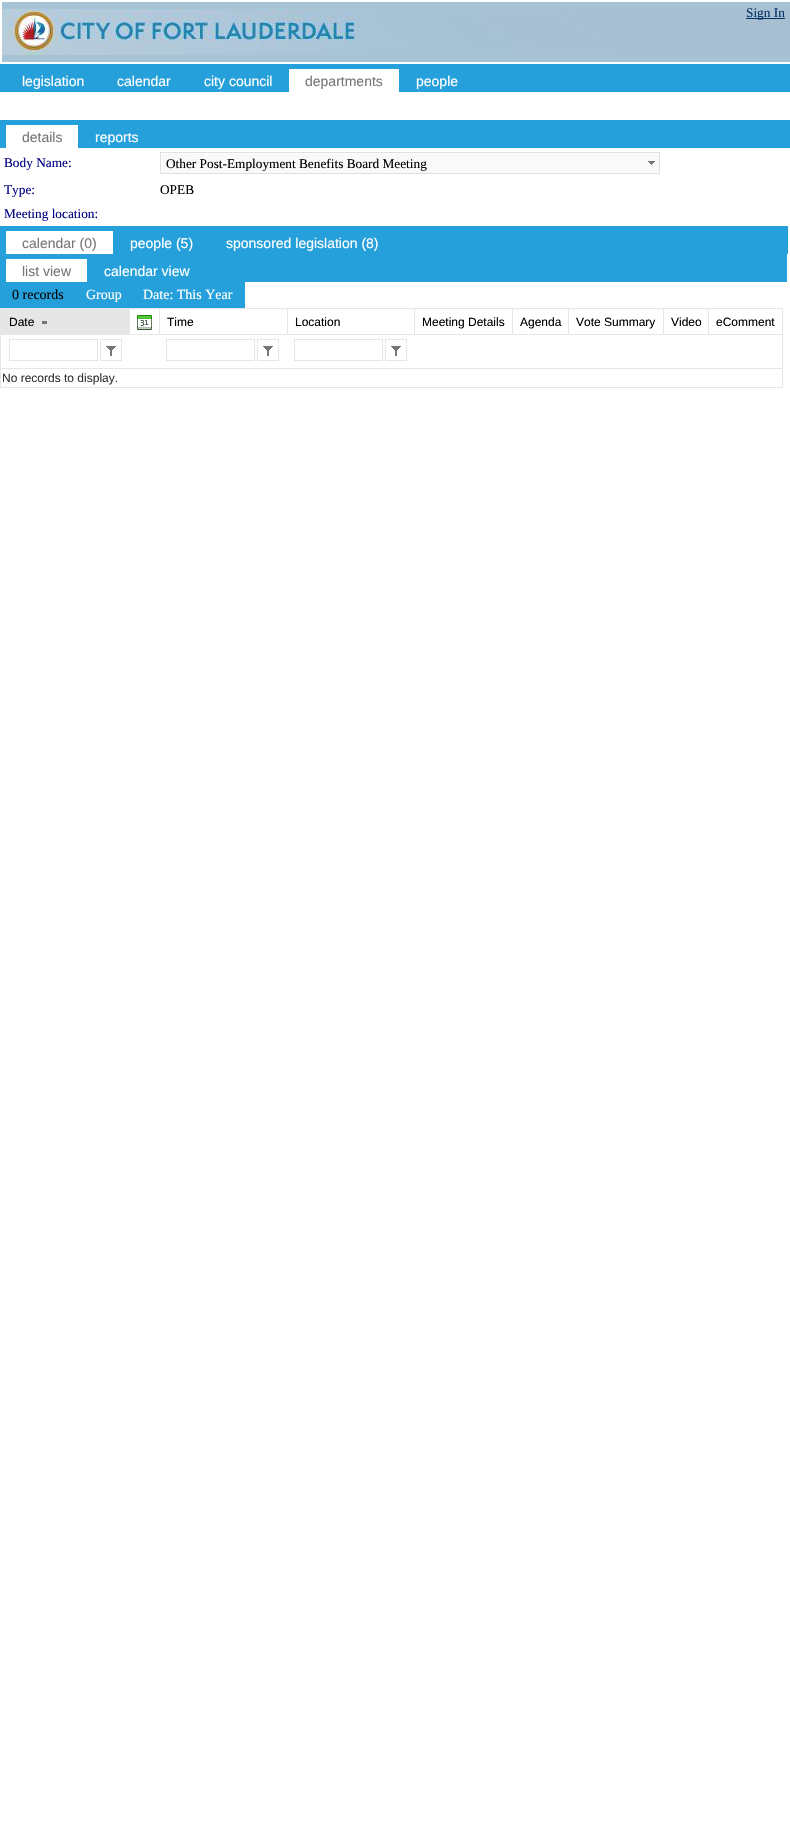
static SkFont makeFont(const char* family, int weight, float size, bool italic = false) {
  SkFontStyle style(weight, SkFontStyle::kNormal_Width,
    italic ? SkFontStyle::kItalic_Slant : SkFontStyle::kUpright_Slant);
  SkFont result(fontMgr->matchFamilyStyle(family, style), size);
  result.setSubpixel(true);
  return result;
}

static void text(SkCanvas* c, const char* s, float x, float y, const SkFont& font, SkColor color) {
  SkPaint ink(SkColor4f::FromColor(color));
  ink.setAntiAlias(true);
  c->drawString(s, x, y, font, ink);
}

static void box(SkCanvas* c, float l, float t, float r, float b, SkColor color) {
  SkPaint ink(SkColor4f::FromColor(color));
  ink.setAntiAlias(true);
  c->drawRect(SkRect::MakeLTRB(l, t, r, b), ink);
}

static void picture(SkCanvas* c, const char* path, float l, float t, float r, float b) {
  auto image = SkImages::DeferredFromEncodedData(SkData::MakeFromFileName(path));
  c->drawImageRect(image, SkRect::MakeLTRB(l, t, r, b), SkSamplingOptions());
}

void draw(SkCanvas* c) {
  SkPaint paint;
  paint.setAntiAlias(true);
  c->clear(0xffffffff);
  box(c, 2, 2, 790, 62, 0xffa7c4d6);
  picture(c, "img_01.png", 2, 9, 790, 55);
  box(c, 746, 18, 785, 19, 0xff023365);
  SkFont face1 = makeFont("Liberation Serif", 400, 13.3f);
  text(c, "Sign In", 746, 17, face1, 0xff023365);
  box(c, 0, 64, 790, 92, 0xff25a0da);
  SkFont face2 = makeFont("Liberation Sans", 400, 14);
  text(c, "legislation", 22, 86, face2, 0xffffffff);
  text(c, "calendar", 117, 86, face2, 0xffffffff);
  text(c, "city council", 204, 86, face2, 0xffffffff);
  box(c, 289, 69, 399, 92, 0xffffffff);
  text(c, "departments", 305, 86, face2, 0xff767676);
  text(c, "people", 416, 86, face2, 0xffffffff);
  box(c, 0, 120, 790, 148, 0xff25a0da);
  box(c, 6, 125, 78, 148, 0xffffffff);
  text(c, "details", 22, 142, face2, 0xff767676);
  text(c, "reports", 95, 142, face2, 0xffffffff);
  text(c, "Body Name:", 4, 167, face1, 0xff000080);
  box(c, 160, 152, 660, 153, 0xffe0dfdf);
  box(c, 659, 152, 660, 174, 0xffe0dfdf);
  box(c, 160, 173, 660, 174, 0xffe0dfdf);
  box(c, 162, 154, 659, 173, 0xfff9f9f9);
  picture(c, "img_02.png", 648, 161, 655, 165);
  box(c, 160, 152, 161, 174, 0xffe0dfdf);
  text(c, "Other Post-Employment Benefits Board Meeting", 166, 168, face1, 0xff000000);
  text(c, "Type:", 4, 194, face1, 0xff000080);
  text(c, "OPEB", 160, 194, face1, 0xff000000);
  text(c, "Meeting location:", 4, 218, face1, 0xff000080);
  box(c, 0, 226, 788, 254, 0xff25a0da);
  box(c, 6, 231, 113, 254, 0xffffffff);
  text(c, "calendar (0)", 22, 248, face2, 0xff767676);
  text(c, "people (5)", 130, 248, face2, 0xffffffff);
  text(c, "sponsored legislation (8)", 226, 248, face2, 0xffffffff);
  box(c, 0, 254, 787, 282, 0xff25a0da);
  box(c, 6, 259, 87, 282, 0xffffffff);
  text(c, "list view", 22, 276, face2, 0xff767676);
  text(c, "calendar view", 104, 276, face2, 0xffffffff);
  box(c, 0, 282, 245, 308, 0xff25a0da);
  SkFont face3 = makeFont("Liberation Serif", 400, 14);
  text(c, "0 records", 12, 299, face3, 0xff000000);
  text(c, "Group", 86, 299, face3, 0xffffffff);
  text(c, "Date: This Year", 143, 299, face3, 0xffffffff);
  paint.setStyle(SkPaint::kStroke_Style);
  paint.setStrokeWidth(1);
  paint.setColor(0xffe6e6e6);
  c->drawRect(SkRect::MakeLTRB(0.5f, 308.5f, 782.5f, 387.5f), paint);
  box(c, 1, 309, 129, 335, 0xffe6e6e6);
  SkFont face4 = makeFont("Liberation Sans", 400, 12);
  text(c, "Date", 9, 326, face4, 0xff000000);
  box(c, 42, 321, 47, 324, 0xff767676);
  box(c, 129, 334, 782, 335, 0xffe6e6e6);
  box(c, 129, 309, 130, 335, 0xffe6e6e6);
  picture(c, "img_03.png", 137, 315, 152, 330);
  box(c, 159, 309, 160, 335, 0xffe6e6e6);
  text(c, "Time", 167, 326, face4, 0xff000000);
  box(c, 287, 309, 288, 335, 0xffe6e6e6);
  text(c, "Location", 295, 326, face4, 0xff000000);
  box(c, 414, 309, 415, 335, 0xffe6e6e6);
  text(c, "Meeting Details", 422, 326, face4, 0xff000000);
  box(c, 512, 309, 513, 335, 0xffe6e6e6);
  text(c, "Agenda", 520, 326, face4, 0xff000000);
  box(c, 568, 309, 569, 335, 0xffe6e6e6);
  text(c, "Vote Summary", 576, 326, face4, 0xff000000);
  box(c, 663, 309, 664, 335, 0xffe6e6e6);
  text(c, "Video", 671, 326, face4, 0xff000000);
  box(c, 708, 309, 709, 335, 0xffe6e6e6);
  text(c, "eComment", 716, 326, face4, 0xff000000);
  box(c, 1, 368, 782, 369, 0xffe6e6e6);
  c->drawRect(SkRect::MakeLTRB(9.5f, 339.5f, 97.5f, 360.5f), paint);
  picture(c, "img_04.png", 106, 346, 116, 356);
  c->drawRect(SkRect::MakeLTRB(100.5f, 339.5f, 121.5f, 360.5f), paint);
  c->drawRect(SkRect::MakeLTRB(166.5f, 339.5f, 254.5f, 360.5f), paint);
  picture(c, "img_04.png", 263, 346, 273, 356);
  c->drawRect(SkRect::MakeLTRB(257.5f, 339.5f, 278.5f, 360.5f), paint);
  c->drawRect(SkRect::MakeLTRB(294.5f, 339.5f, 382.5f, 360.5f), paint);
  picture(c, "img_04.png", 391, 346, 401, 356);
  c->drawRect(SkRect::MakeLTRB(385.5f, 339.5f, 406.5f, 360.5f), paint);
  text(c, "No records to display.", 2, 382, face4, 0xff333333);
}
